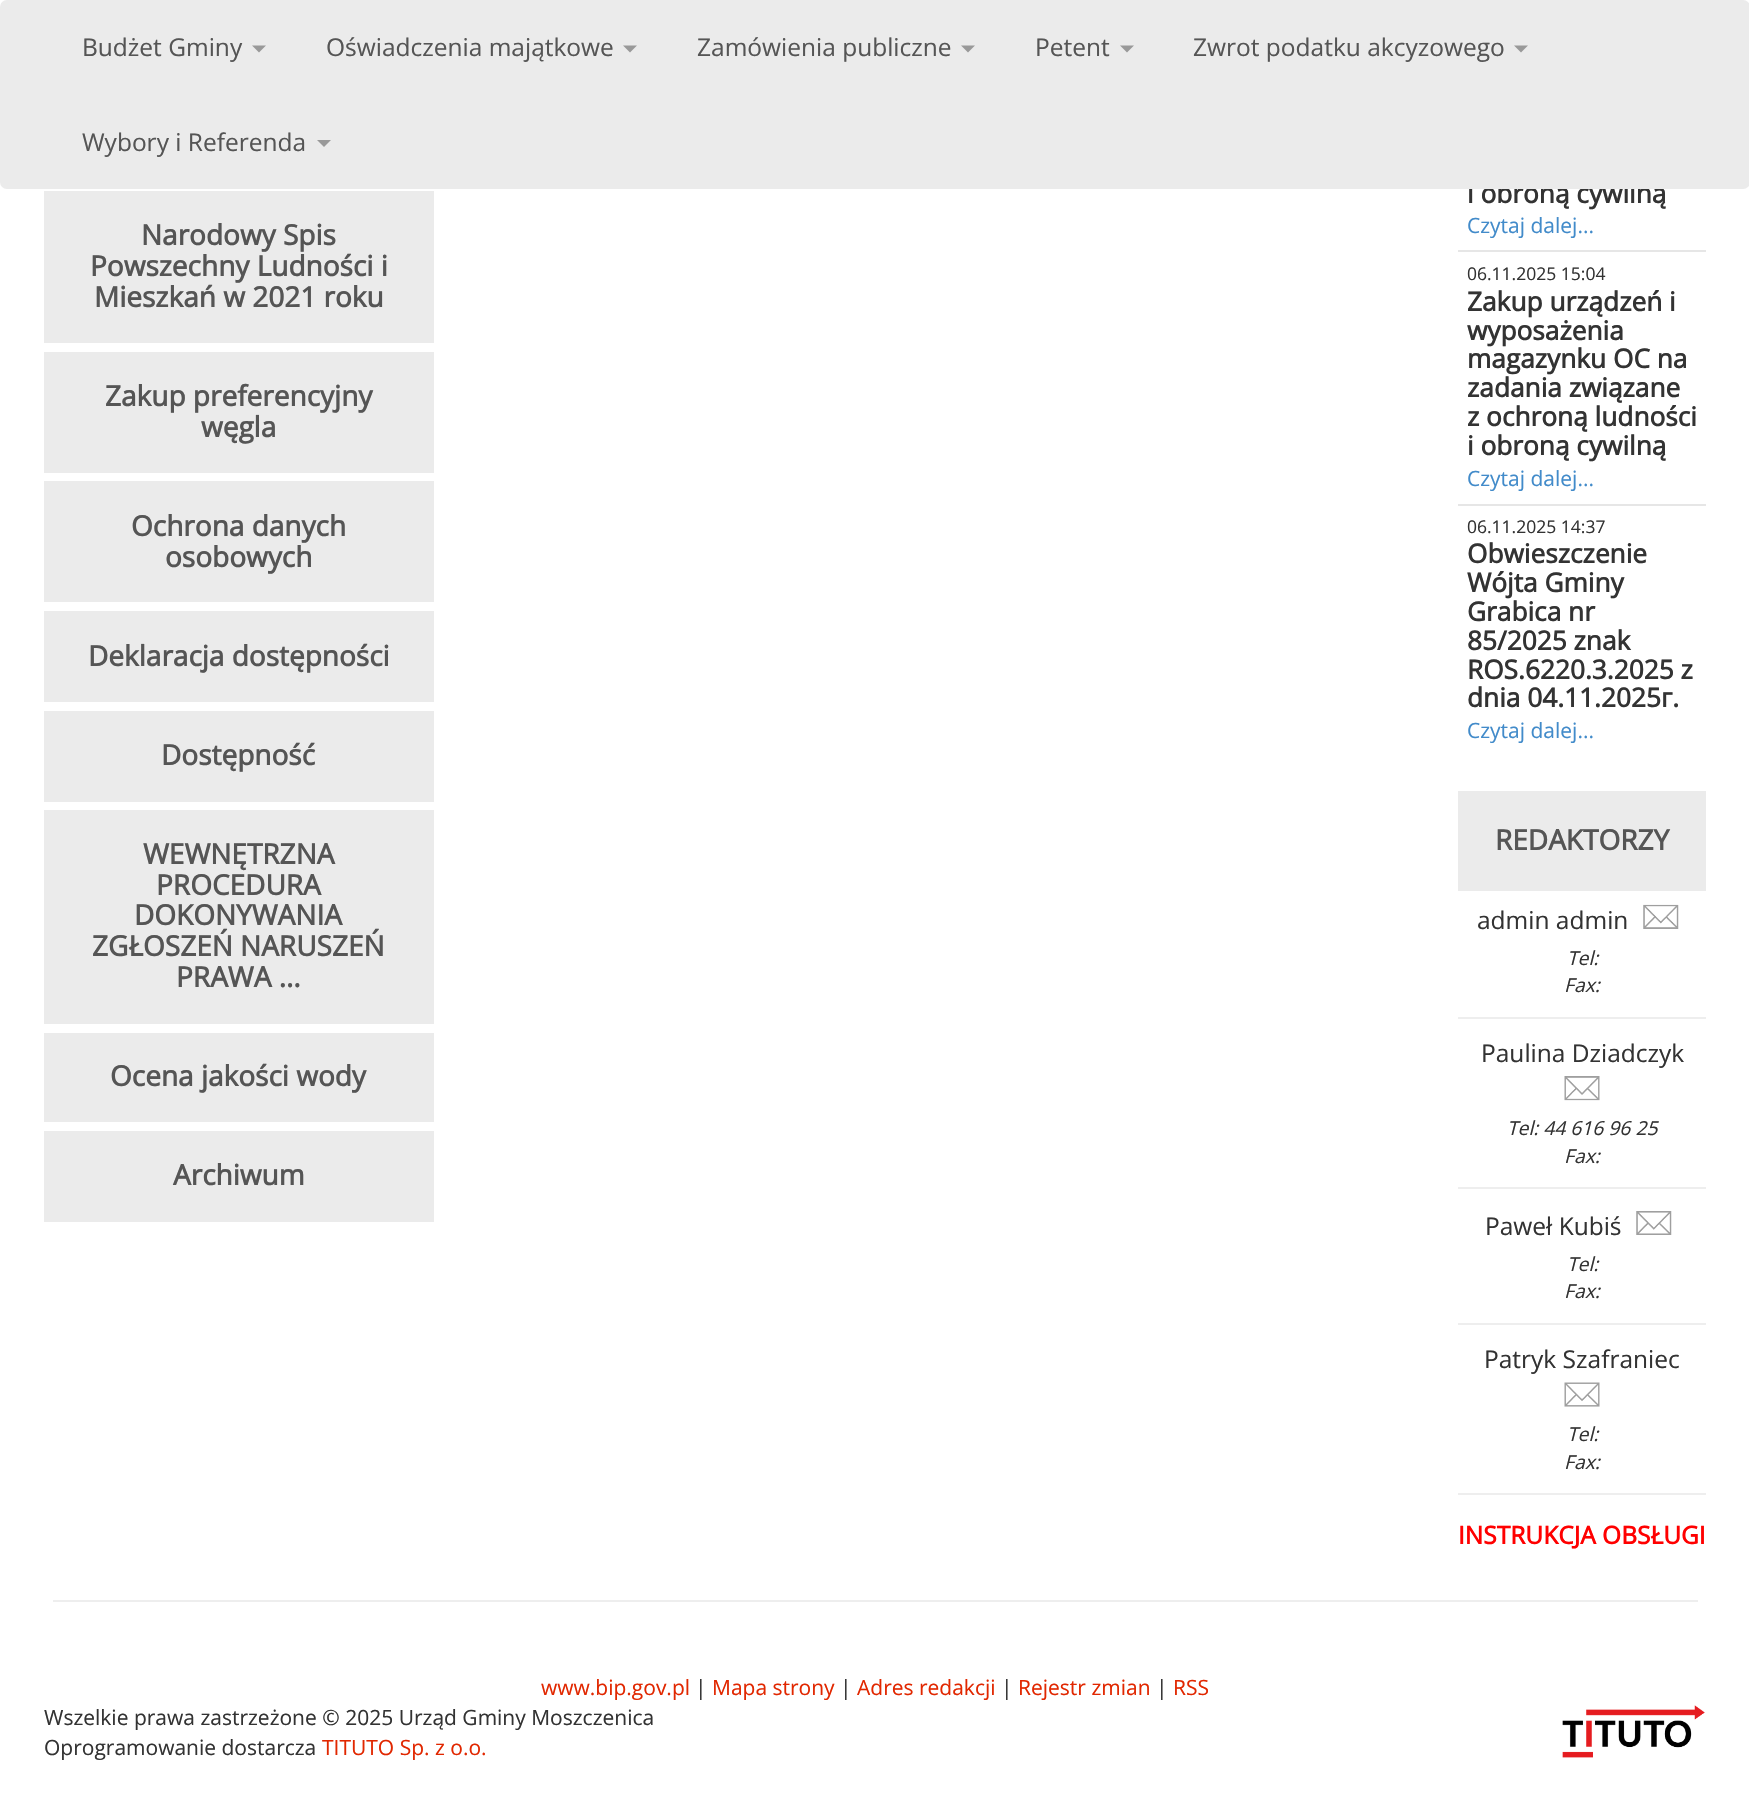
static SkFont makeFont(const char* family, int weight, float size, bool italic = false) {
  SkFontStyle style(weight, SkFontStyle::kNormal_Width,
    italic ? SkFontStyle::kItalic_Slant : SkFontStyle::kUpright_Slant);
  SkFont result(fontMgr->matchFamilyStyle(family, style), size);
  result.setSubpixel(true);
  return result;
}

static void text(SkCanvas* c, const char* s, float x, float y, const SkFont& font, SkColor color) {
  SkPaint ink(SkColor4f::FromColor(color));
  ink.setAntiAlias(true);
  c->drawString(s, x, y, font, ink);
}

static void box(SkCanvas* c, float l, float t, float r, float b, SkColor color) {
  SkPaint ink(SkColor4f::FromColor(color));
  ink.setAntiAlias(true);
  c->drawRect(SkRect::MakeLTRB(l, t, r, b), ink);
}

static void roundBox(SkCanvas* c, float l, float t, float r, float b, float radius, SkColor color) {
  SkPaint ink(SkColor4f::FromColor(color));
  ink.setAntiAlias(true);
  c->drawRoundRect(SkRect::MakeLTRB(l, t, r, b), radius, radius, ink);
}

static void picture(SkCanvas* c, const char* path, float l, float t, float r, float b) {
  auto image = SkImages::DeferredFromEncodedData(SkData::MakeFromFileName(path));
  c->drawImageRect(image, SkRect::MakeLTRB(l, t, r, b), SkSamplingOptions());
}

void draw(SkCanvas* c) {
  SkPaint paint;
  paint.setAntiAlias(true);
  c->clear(0xffffffff);
  SkFont face1 = makeFont("Open Sans", 700, 26.25f);
  text(c, "i obroną cywilną", 1467, 203, face1, 0xff333333);
  roundBox(c, 0, 0, 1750, 189, 7, 0xffebebeb);
  SkFont face2 = makeFont("Open Sans", 400, 24.5f);
  text(c, "Budżet Gminy", 82, 56, face2, 0xff555555);
  paint.setColor(0xff999999);
  c->drawPath(SkPathBuilder().moveTo(252, 45.5f).lineTo(266, 45.5f).lineTo(259, 52.5f).close().detach(), paint);
  text(c, "Oświadczenia majątkowe", 326, 56, face2, 0xff555555);
  c->drawPath(SkPathBuilder().moveTo(623, 45.5f).lineTo(637, 45.5f).lineTo(630, 52.5f).close().detach(), paint);
  text(c, "Zamówienia publiczne", 697, 56, face2, 0xff555555);
  c->drawPath(SkPathBuilder().moveTo(961, 45.5f).lineTo(975, 45.5f).lineTo(968, 52.5f).close().detach(), paint);
  text(c, "Petent", 1035, 56, face2, 0xff555555);
  c->drawPath(SkPathBuilder().moveTo(1120, 45.5f).lineTo(1134, 45.5f).lineTo(1127, 52.5f).close().detach(), paint);
  text(c, "Zwrot podatku akcyzowego", 1193, 56, face2, 0xff555555);
  c->drawPath(SkPathBuilder().moveTo(1514, 45.5f).lineTo(1528, 45.5f).lineTo(1521, 52.5f).close().detach(), paint);
  text(c, "Wybory i Referenda", 82, 151, face2, 0xff555555);
  c->drawPath(SkPathBuilder().moveTo(317, 140).lineTo(331, 140).lineTo(324, 147).close().detach(), paint);
  box(c, 44, 191, 434, 343, 0xffebebeb);
  SkFont face3 = makeFont("Open Sans", 700, 28);
  text(c, "Narodowy Spis", 141, 245, face3, 0xff555555);
  text(c, "Powszechny Ludności i", 90, 276, face3, 0xff555555);
  text(c, "Mieszkań w 2021 roku", 94, 307, face3, 0xff555555);
  box(c, 44, 352, 434, 473, 0xffebebeb);
  text(c, "Zakup preferencyjny", 105, 406, face3, 0xff555555);
  text(c, "węgla", 201, 437, face3, 0xff555555);
  box(c, 44, 481, 434, 602, 0xffebebeb);
  text(c, "Ochrona danych", 131, 536, face3, 0xff555555);
  text(c, "osobowych", 165, 567, face3, 0xff555555);
  box(c, 44, 611, 434, 702, 0xffebebeb);
  text(c, "Deklaracja dostępności", 88, 666, face3, 0xff555555);
  box(c, 44, 711, 434, 802, 0xffebebeb);
  text(c, "Dostępność", 161, 765, face3, 0xff555555);
  box(c, 44, 810, 434, 1024, 0xffebebeb);
  text(c, "WEWNĘTRZNA", 143, 864, face3, 0xff555555);
  text(c, "PROCEDURA", 156, 895, face3, 0xff555555);
  text(c, "DOKONYWANIA", 134, 925, face3, 0xff555555);
  text(c, "ZGŁOSZEŃ NARUSZEŃ", 92, 956, face3, 0xff555555);
  text(c, "PRAWA ...", 176, 987, face3, 0xff555555);
  box(c, 44, 1033, 434, 1122, 0xffebebeb);
  text(c, "Ocena jakości wody", 110, 1086, face3, 0xff555555);
  box(c, 44, 1131, 434, 1222, 0xffebebeb);
  text(c, "Archiwum", 173, 1185, face3, 0xff555555);
  box(c, 1458, 250, 1706, 252, 0xffe6e6e6);
  SkFont face4 = makeFont("Open Sans", 400, 21);
  text(c, "Czytaj dalej...", 1467, 233, face4, 0xff428bca);
  box(c, 1458, 504, 1706, 506, 0xffe6e6e6);
  SkFont face5 = makeFont("Open Sans", 400, 17.5f);
  text(c, "06.11.2025 15:04", 1467, 280, face5, 0xff333333);
  text(c, "Zakup urządzeń i", 1467, 311, face1, 0xff333333);
  text(c, "wyposażenia", 1467, 340, face1, 0xff333333);
  text(c, "magazynku OC na", 1467, 368, face1, 0xff333333);
  text(c, "zadania związane", 1467, 397, face1, 0xff333333);
  text(c, "z ochroną ludności", 1467, 426, face1, 0xff333333);
  text(c, "i obroną cywilną", 1467, 455, face1, 0xff333333);
  text(c, "Czytaj dalej...", 1467, 486, face4, 0xff428bca);
  text(c, "06.11.2025 14:37", 1467, 533, face5, 0xff333333);
  text(c, "Obwieszczenie", 1467, 563, face1, 0xff333333);
  text(c, "Wójta Gminy", 1467, 592, face1, 0xff333333);
  text(c, "Grabica nr", 1467, 621, face1, 0xff333333);
  text(c, "85/2025 znak", 1467, 650, face1, 0xff333333);
  text(c, "ROS.6220.3.2025 z", 1467, 679, face1, 0xff333333);
  text(c, "dnia 04.11.2025г.", 1467, 707, face1, 0xff333333);
  text(c, "Czytaj dalej...", 1467, 738, face4, 0xff428bca);
  box(c, 1458, 791, 1706, 891, 0xffebebeb);
  text(c, "REDAKTORZY", 1495, 850, face3, 0xff555555);
  text(c, "admin admin", 1477, 929, face2, 0xff333333);
  picture(c, "img_01.png", 1643, 904, 1679, 929);
  SkFont face6 = makeFont("Open Sans", 400, 19.25f, true);
  text(c, "Tel:", 1567, 965, face6, 0xff333333);
  text(c, "Fax:", 1564, 992, face6, 0xff333333);
  box(c, 1458, 1017, 1706, 1019, 0xffeeeeee);
  text(c, "Paulina Dziadczyk", 1481, 1062, face2, 0xff333333);
  picture(c, "img_02.png", 1564, 1076, 1600, 1101);
  text(c, "Tel: 44 616 96 25", 1507, 1135, face6, 0xff333333);
  text(c, "Fax:", 1564, 1163, face6, 0xff333333);
  box(c, 1458, 1187, 1706, 1189, 0xffeeeeee);
  text(c, "Paweł Kubiś", 1485, 1235, face2, 0xff333333);
  picture(c, "img_03.png", 1636, 1211, 1672, 1235);
  text(c, "Tel:", 1567, 1271, face6, 0xff333333);
  text(c, "Fax:", 1564, 1298, face6, 0xff333333);
  box(c, 1458, 1323, 1706, 1325, 0xffeeeeee);
  text(c, "Patryk Szafraniec", 1484, 1368, face2, 0xff333333);
  picture(c, "img_04.png", 1564, 1382, 1600, 1407);
  text(c, "Tel:", 1567, 1441, face6, 0xff333333);
  text(c, "Fax:", 1564, 1469, face6, 0xff333333);
  box(c, 1458, 1493, 1706, 1495, 0xffeeeeee);
  SkFont face7 = makeFont("Open Sans", 700, 24.5f);
  text(c, "INSTRUKCJA OBSŁUGI", 1458, 1544, face7, 0xffff0000);
  box(c, 53, 1600, 1698, 1602, 0xffeeeeee);
  text(c, "www.bip.gov.pl", 541, 1695, face4, 0xffe12700);
  text(c, "|", 695, 1695, face4, 0xff333333);
  text(c, "Mapa strony", 712, 1695, face4, 0xffe12700);
  text(c, "|", 840, 1695, face4, 0xff333333);
  text(c, "Adres redakcji", 857, 1695, face4, 0xffe12700);
  text(c, "|", 1001, 1695, face4, 0xff333333);
  text(c, "Rejestr zmian", 1018, 1695, face4, 0xffe12700);
  text(c, "|", 1156, 1695, face4, 0xff333333);
  text(c, "RSS", 1173, 1695, face4, 0xffe12700);
  text(c, "Wszelkie prawa zastrzeżone © 2025 Urząd Gminy Moszczenica", 44, 1725, face4, 0xff333333);
  text(c, "Oprogramowanie dostarcza", 44, 1755, face4, 0xff333333);
  text(c, "TITUTO Sp. z o.o.", 322, 1755, face4, 0xffe12700);
  picture(c, "img_05.png", 1562, 1705, 1705, 1758);
}
